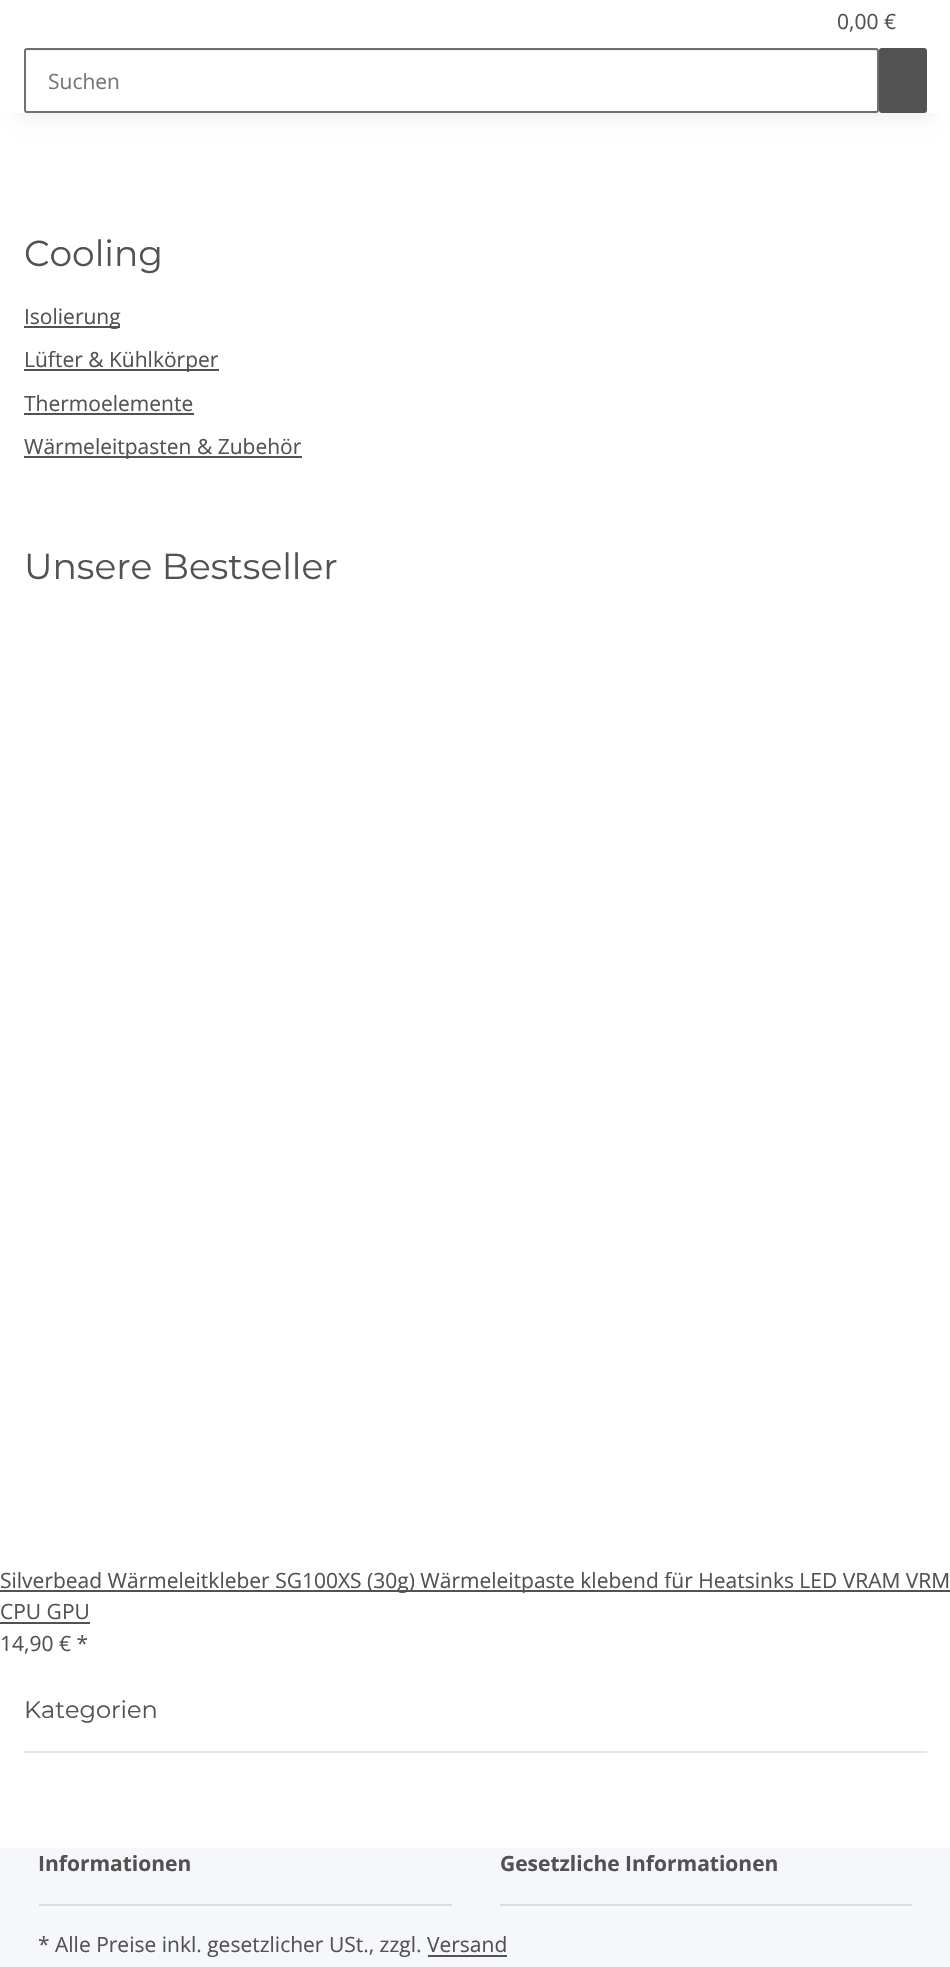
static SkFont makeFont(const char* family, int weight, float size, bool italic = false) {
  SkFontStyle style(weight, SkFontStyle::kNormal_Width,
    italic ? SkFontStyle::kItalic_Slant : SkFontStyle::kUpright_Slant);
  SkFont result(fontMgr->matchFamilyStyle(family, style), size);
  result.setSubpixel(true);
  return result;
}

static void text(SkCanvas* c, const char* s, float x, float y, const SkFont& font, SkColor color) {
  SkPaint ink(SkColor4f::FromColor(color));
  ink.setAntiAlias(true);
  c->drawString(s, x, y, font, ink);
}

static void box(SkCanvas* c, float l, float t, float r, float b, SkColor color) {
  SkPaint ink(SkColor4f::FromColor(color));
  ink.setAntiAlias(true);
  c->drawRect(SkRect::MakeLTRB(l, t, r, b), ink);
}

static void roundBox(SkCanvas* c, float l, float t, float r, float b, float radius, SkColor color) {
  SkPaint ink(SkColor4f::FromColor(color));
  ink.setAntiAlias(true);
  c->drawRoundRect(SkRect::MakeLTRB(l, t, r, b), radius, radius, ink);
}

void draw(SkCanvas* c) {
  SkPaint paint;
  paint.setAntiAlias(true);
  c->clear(0xfff5f7fa);
  box(c, 0, 113, 950, 1848, 0xffffffff);
  paint.setColor(0x0f000000);
  paint.setMaskFilter(SkMaskFilter::MakeBlur(kNormal_SkBlurStyle, 7));
  c->drawRect(SkRect::MakeLTRB(18, 35, 933, 119), paint);
  paint.setMaskFilter(nullptr);
  box(c, 0, 0, 950, 113, 0xffffffff);
  SkFont face1 = makeFont("Open Sans", 400, 21);
  text(c, "0,00 €", 837, 29, face1, 0xff525252);
  paint.setColor(0xffececec);
  c->drawPath(SkPathBuilder().moveTo(27, 51).lineTo(876, 51).lineTo(878, 52).cubicTo(878, 51, 878, 50, 876, 50).lineTo(28, 50).lineTo(26, 51).lineTo(26, 52).close().detach(), paint);
  paint.setStyle(SkPaint::kStroke_Style);
  paint.setStrokeWidth(2);
  paint.setColor(0xff707070);
  c->drawRoundRect(SkRect::MakeLTRB(25, 49, 878, 112), 2, 2, paint);
  text(c, "Suchen", 48, 89, face1, 0xff757575);
  roundBox(c, 879, 48, 927, 113, 3, 0xff525252);
  SkFont face2 = makeFont("Montserrat", 400, 36);
  text(c, "Cooling", 24, 266, face2, 0xff525252);
  box(c, 24, 326, 120, 328, 0xff525252);
  text(c, "Isolierung", 24, 324, face1, 0xff525252);
  box(c, 24, 369, 219, 371, 0xff525252);
  text(c, "Lüfter & Kühlkörper", 24, 367, face1, 0xff525252);
  text(c, "Thermoelemente", 24, 411, face1, 0xff525252);
  box(c, 24, 413, 194, 415, 0xff525252);
  box(c, 24, 456, 302, 458, 0xff525252);
  text(c, "Wärmeleitpasten & Zubehör", 24, 454, face1, 0xff525252);
  text(c, "Unsere Bestseller", 24, 579, face2, 0xff525252);
  box(c, 0, 1590, 950, 1592, 0xff525252);
  text(c, "Silverbead Wärmeleitkleber SG100XS (30g) Wärmeleitpaste klebend für Heatsinks LED VRAM VRM", 0, 1588, face1, 0xff525252);
  text(c, "CPU GPU", 0, 1619, face1, 0xff525252);
  box(c, 0, 1622, 90, 1624, 0xff525252);
  text(c, "14,90 € *", 0, 1651, face1, 0xff525252);
  SkFont face3 = makeFont("Montserrat", 400, 24);
  text(c, "Kategorien", 24, 1718, face3, 0xff525252);
  box(c, 24, 1751, 927, 1753, 0xffe6e6e6);
  SkFont face4 = makeFont("Open Sans", 700, 21);
  text(c, "Informationen", 38, 1871, face4, 0xff525252);
  box(c, 39, 1904, 452, 1906, 0xffdddee1);
  text(c, "Gesetzliche Informationen", 500, 1871, face4, 0xff525252);
  box(c, 500, 1904, 912, 1906, 0xffdddee1);
  text(c, "* Alle Preise inkl. gesetzlicher USt., zzgl. Versand", 38, 1952, face1, 0xff525252);
  box(c, 428, 1955, 507, 1957, 0xff525252);
}
